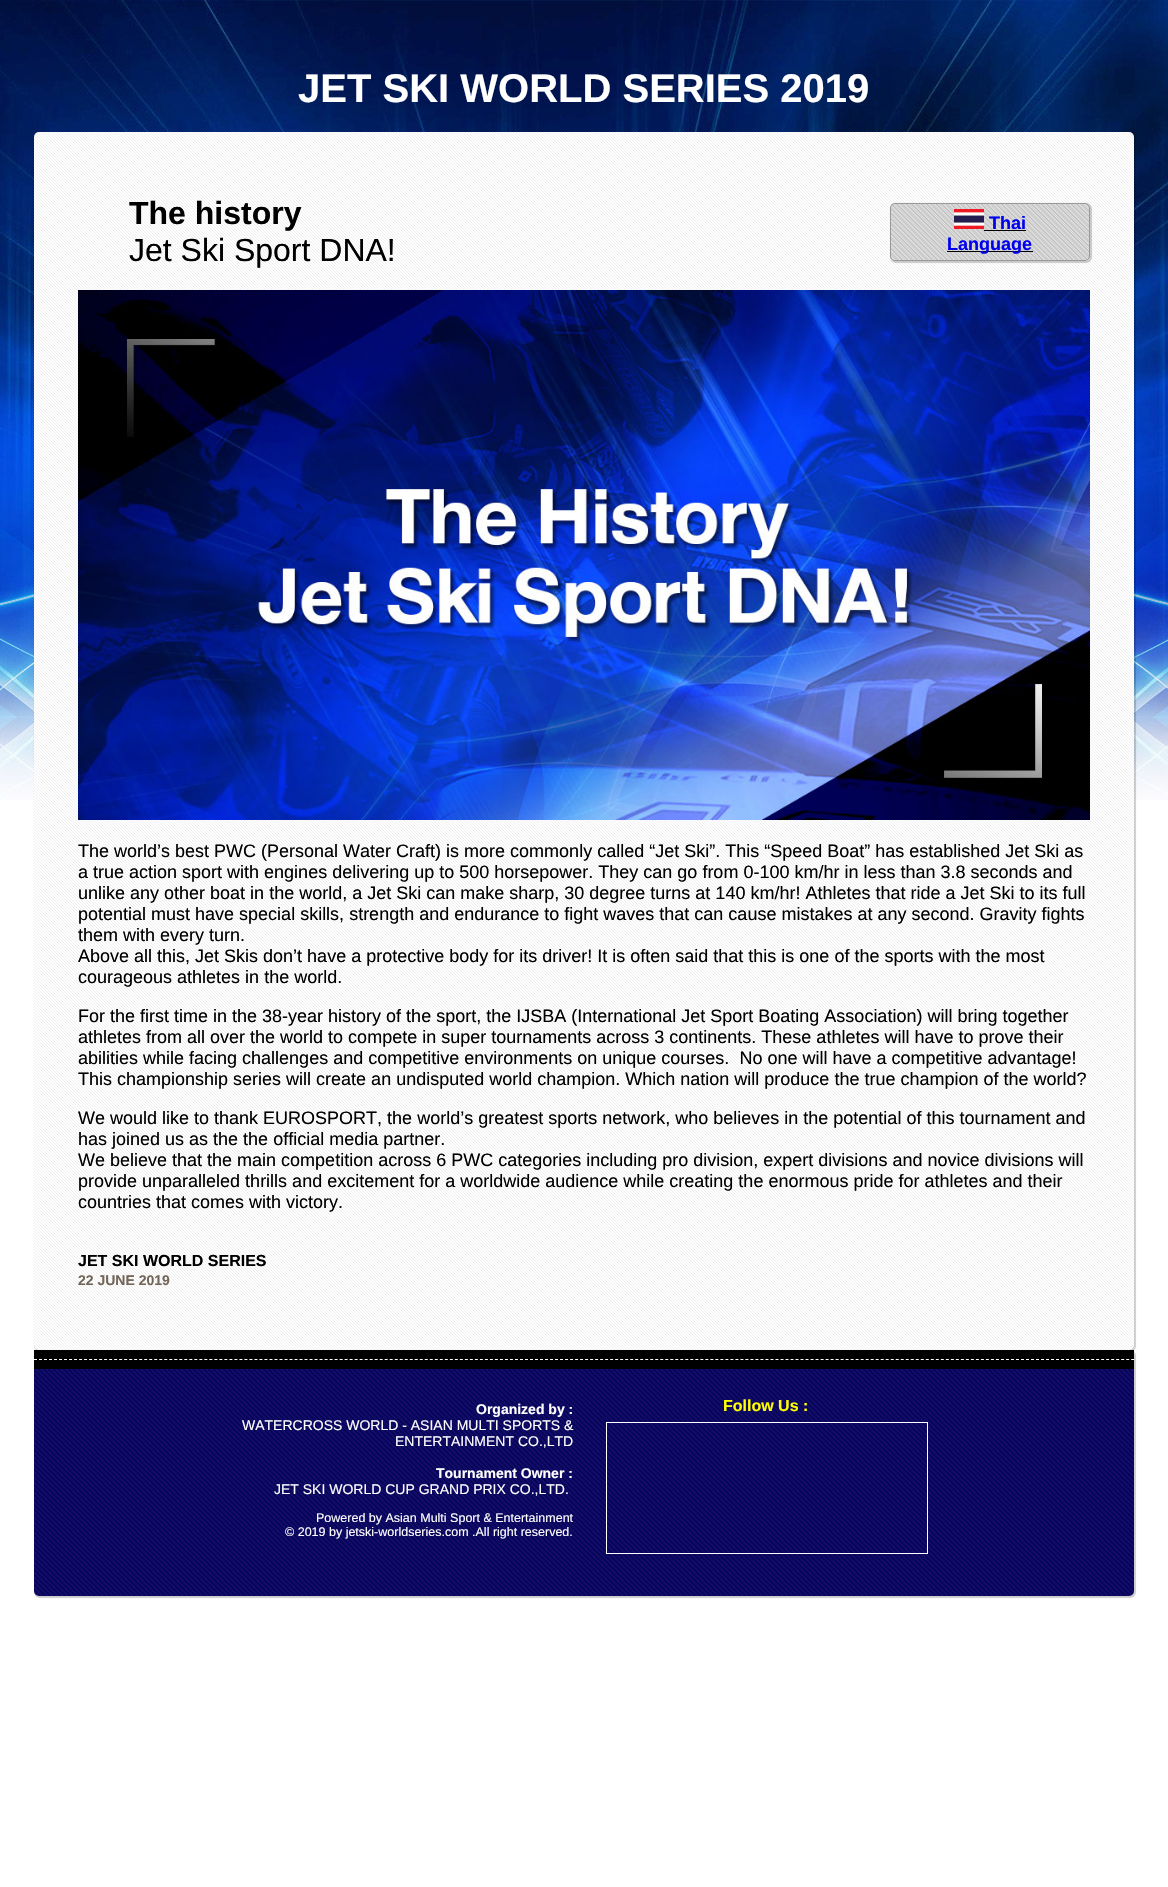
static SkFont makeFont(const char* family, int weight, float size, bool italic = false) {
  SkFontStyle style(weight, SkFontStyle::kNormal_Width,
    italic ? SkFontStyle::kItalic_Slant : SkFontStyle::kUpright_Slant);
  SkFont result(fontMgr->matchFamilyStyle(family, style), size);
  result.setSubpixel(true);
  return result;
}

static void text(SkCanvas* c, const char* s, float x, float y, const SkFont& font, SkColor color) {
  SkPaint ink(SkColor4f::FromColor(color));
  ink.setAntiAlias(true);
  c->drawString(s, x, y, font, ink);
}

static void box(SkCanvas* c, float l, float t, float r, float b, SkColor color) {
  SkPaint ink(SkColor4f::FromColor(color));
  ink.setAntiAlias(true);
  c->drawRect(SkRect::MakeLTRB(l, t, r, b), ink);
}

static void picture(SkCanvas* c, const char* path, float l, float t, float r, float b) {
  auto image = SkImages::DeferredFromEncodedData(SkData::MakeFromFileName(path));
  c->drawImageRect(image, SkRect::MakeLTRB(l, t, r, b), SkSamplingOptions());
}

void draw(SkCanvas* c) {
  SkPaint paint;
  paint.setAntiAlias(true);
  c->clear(0xffffffff);
  picture(c, "img_01.png", 0, 0, 1168, 800);
  SkFont face1 = makeFont("Liberation Sans", 700, 40);
  text(c, "JET SKI WORLD SERIES 2019", 298, 102, face1, 0xffffffff);
  paint.setColor(0x33050505);
  paint.setMaskFilter(SkMaskFilter::MakeBlur(kNormal_SkBlurStyle, 0.5f));
  c->drawRoundRect(SkRect::MakeLTRB(34, 132, 1136, 1352), 6, 6, paint);
  paint.setMaskFilter(nullptr);
  picture(c, "img_02.png", 34, 132, 1134, 1350);
  SkFont face2 = makeFont("Liberation Sans", 700, 32);
  text(c, "The history", 129, 224, face2, 0xff000000);
  SkFont face3 = makeFont("Liberation Sans", 400, 32);
  text(c, "Jet Ski Sport DNA!", 129, 261, face3, 0xff000000);
  c->save();
  c->clipPath(SkPathBuilder(SkPathFillType::kEvenOdd).moveTo(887, 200).lineTo(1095, 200).lineTo(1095, 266).lineTo(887, 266).close().moveTo(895, 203).lineTo(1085, 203).cubicTo(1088, 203, 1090, 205, 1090, 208).lineTo(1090, 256).cubicTo(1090, 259, 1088, 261, 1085, 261).lineTo(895, 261).cubicTo(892, 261, 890, 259, 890, 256).lineTo(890, 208).cubicTo(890, 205, 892, 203, 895, 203).close().detach(), true);
  paint.setMaskFilter(SkMaskFilter::MakeBlur(kNormal_SkBlurStyle, 0.5f));
  c->drawRoundRect(SkRect::MakeLTRB(890, 203, 1092, 263), 6, 6, paint);
  paint.setMaskFilter(nullptr);
  c->restore();
  picture(c, "img_03.png", 890, 203, 1090, 261);
  paint.setStyle(SkPaint::kStroke_Style);
  paint.setStrokeWidth(1);
  paint.setColor(0xff999999);
  c->drawRoundRect(SkRect::MakeLTRB(890.5f, 203.5f, 1089.5f, 260.5f), 4.5f, 4.5f, paint);
  picture(c, "img_04.png", 954, 209, 984, 229);
  SkFont face4 = makeFont("Liberation Sans", 700, 18);
  text(c, "Thai", 989, 229, face4, 0xff0000ee);
  box(c, 984, 230, 1026, 231, 0xff000000);
  box(c, 947, 251, 1033, 252, 0xff000000);
  text(c, "Language", 947, 250, face4, 0xff0000ee);
  picture(c, "img_05.png", 78, 290, 1090, 820);
  SkFont face5 = makeFont("Liberation Sans", 400, 18);
  text(c, "The world’s best PWC (Personal Water Craft) is more commonly called “Jet Ski”. This “Speed Boat” has established Jet Ski as", 78, 857, face5, 0xff000000);
  text(c, "a true action sport with engines delivering up to 500 horsepower. They can go from 0-100 km/hr in less than 3.8 seconds and", 78, 878, face5, 0xff000000);
  text(c, "unlike any other boat in the world, a Jet Ski can make sharp, 30 degree turns at 140 km/hr! Athletes that ride a Jet Ski to its full", 78, 899, face5, 0xff000000);
  text(c, "potential must have special skills, strength and endurance to fight waves that can cause mistakes at any second. Gravity fights", 78, 920, face5, 0xff000000);
  text(c, "them with every turn.", 78, 941, face5, 0xff000000);
  text(c, "Above all this, Jet Skis don’t have a protective body for its driver! It is often said that this is one of the sports with the most", 78, 962, face5, 0xff000000);
  text(c, "courageous athletes in the world.", 78, 983, face5, 0xff000000);
  text(c, "For the first time in the 38-year history of the sport, the IJSBA (International Jet Sport Boating Association) will bring together", 78, 1022, face5, 0xff000000);
  text(c, "athletes from all over the world to compete in super tournaments across 3 continents. These athletes will have to prove their", 78, 1043, face5, 0xff000000);
  text(c, "abilities while facing challenges and competitive environments on unique courses.  No one will have a competitive advantage!", 78, 1064, face5, 0xff000000);
  text(c, "This championship series will create an undisputed world champion. Which nation will produce the true champion of the world?", 78, 1085, face5, 0xff000000);
  text(c, "We would like to thank EUROSPORT, the world’s greatest sports network, who believes in the potential of this tournament and", 78, 1124, face5, 0xff000000);
  text(c, "has joined us as the the official media partner.", 78, 1145, face5, 0xff000000);
  text(c, "We believe that the main competition across 6 PWC categories including pro division, expert divisions and novice divisions will", 78, 1166, face5, 0xff000000);
  text(c, "provide unparalleled thrills and excitement for a worldwide audience while creating the enormous pride for athletes and their", 78, 1187, face5, 0xff000000);
  text(c, "countries that comes with victory.", 78, 1208, face5, 0xff000000);
  SkFont face6 = makeFont("Liberation Sans", 700, 16);
  text(c, "JET SKI WORLD SERIES", 78, 1266, face6, 0xff000000);
  SkFont face7 = makeFont("Liberation Sans", 700, 14);
  text(c, "22 JUNE 2019", 78, 1285, face7, 0xff716558);
  paint.setStyle(SkPaint::kFill_Style);
  paint.setColor(0x33050505);
  paint.setMaskFilter(SkMaskFilter::MakeBlur(kNormal_SkBlurStyle, 0.5f));
  c->drawRoundRect(SkRect::MakeLTRB(34, 1350, 1136, 1598), 6, 6, paint);
  paint.setMaskFilter(nullptr);
  picture(c, "img_06.png", 34, 1369, 1134, 1596);
  box(c, 34, 1350, 1134, 1369, 0xff000000);
  paint.setStyle(SkPaint::kStroke_Style);
  paint.setColor(0xffffffff);
  paint.setPathEffect(SkDashPathEffect::Make({{3, 2.01f}}, 0));
  c->drawPath(SkPathBuilder().moveTo(34, 1359.5f).lineTo(1134, 1359.5f).detach(), paint);
  paint.setPathEffect(nullptr);
  text(c, "Organized by :", 476, 1414, face7, 0xffffffff);
  SkFont face8 = makeFont("Liberation Sans", 400, 14);
  text(c, "WATERCROSS WORLD - ASIAN MULTI SPORTS &", 242, 1430, face8, 0xffffffff);
  text(c, "ENTERTAINMENT CO.,LTD", 395, 1446, face8, 0xffffffff);
  text(c, "Tournament Owner :", 436, 1478, face7, 0xffffffff);
  text(c, "JET SKI WORLD CUP GRAND PRIX CO.,LTD.", 274, 1494, face8, 0xffffffff);
  SkFont face9 = makeFont("Liberation Sans", 400, 12.5f);
  text(c, "Powered by Asian Multi Sport & Entertainment", 316, 1522, face9, 0xffffffff);
  text(c, "© 2019 by jetski-worldseries.com .All right reserved.", 285, 1536, face9, 0xffffffff);
  text(c, "Follow Us :", 723, 1411, face6, 0xffffff00);
  c->drawRect(SkRect::MakeLTRB(606.5f, 1422.5f, 927.5f, 1553.5f), paint);
}
